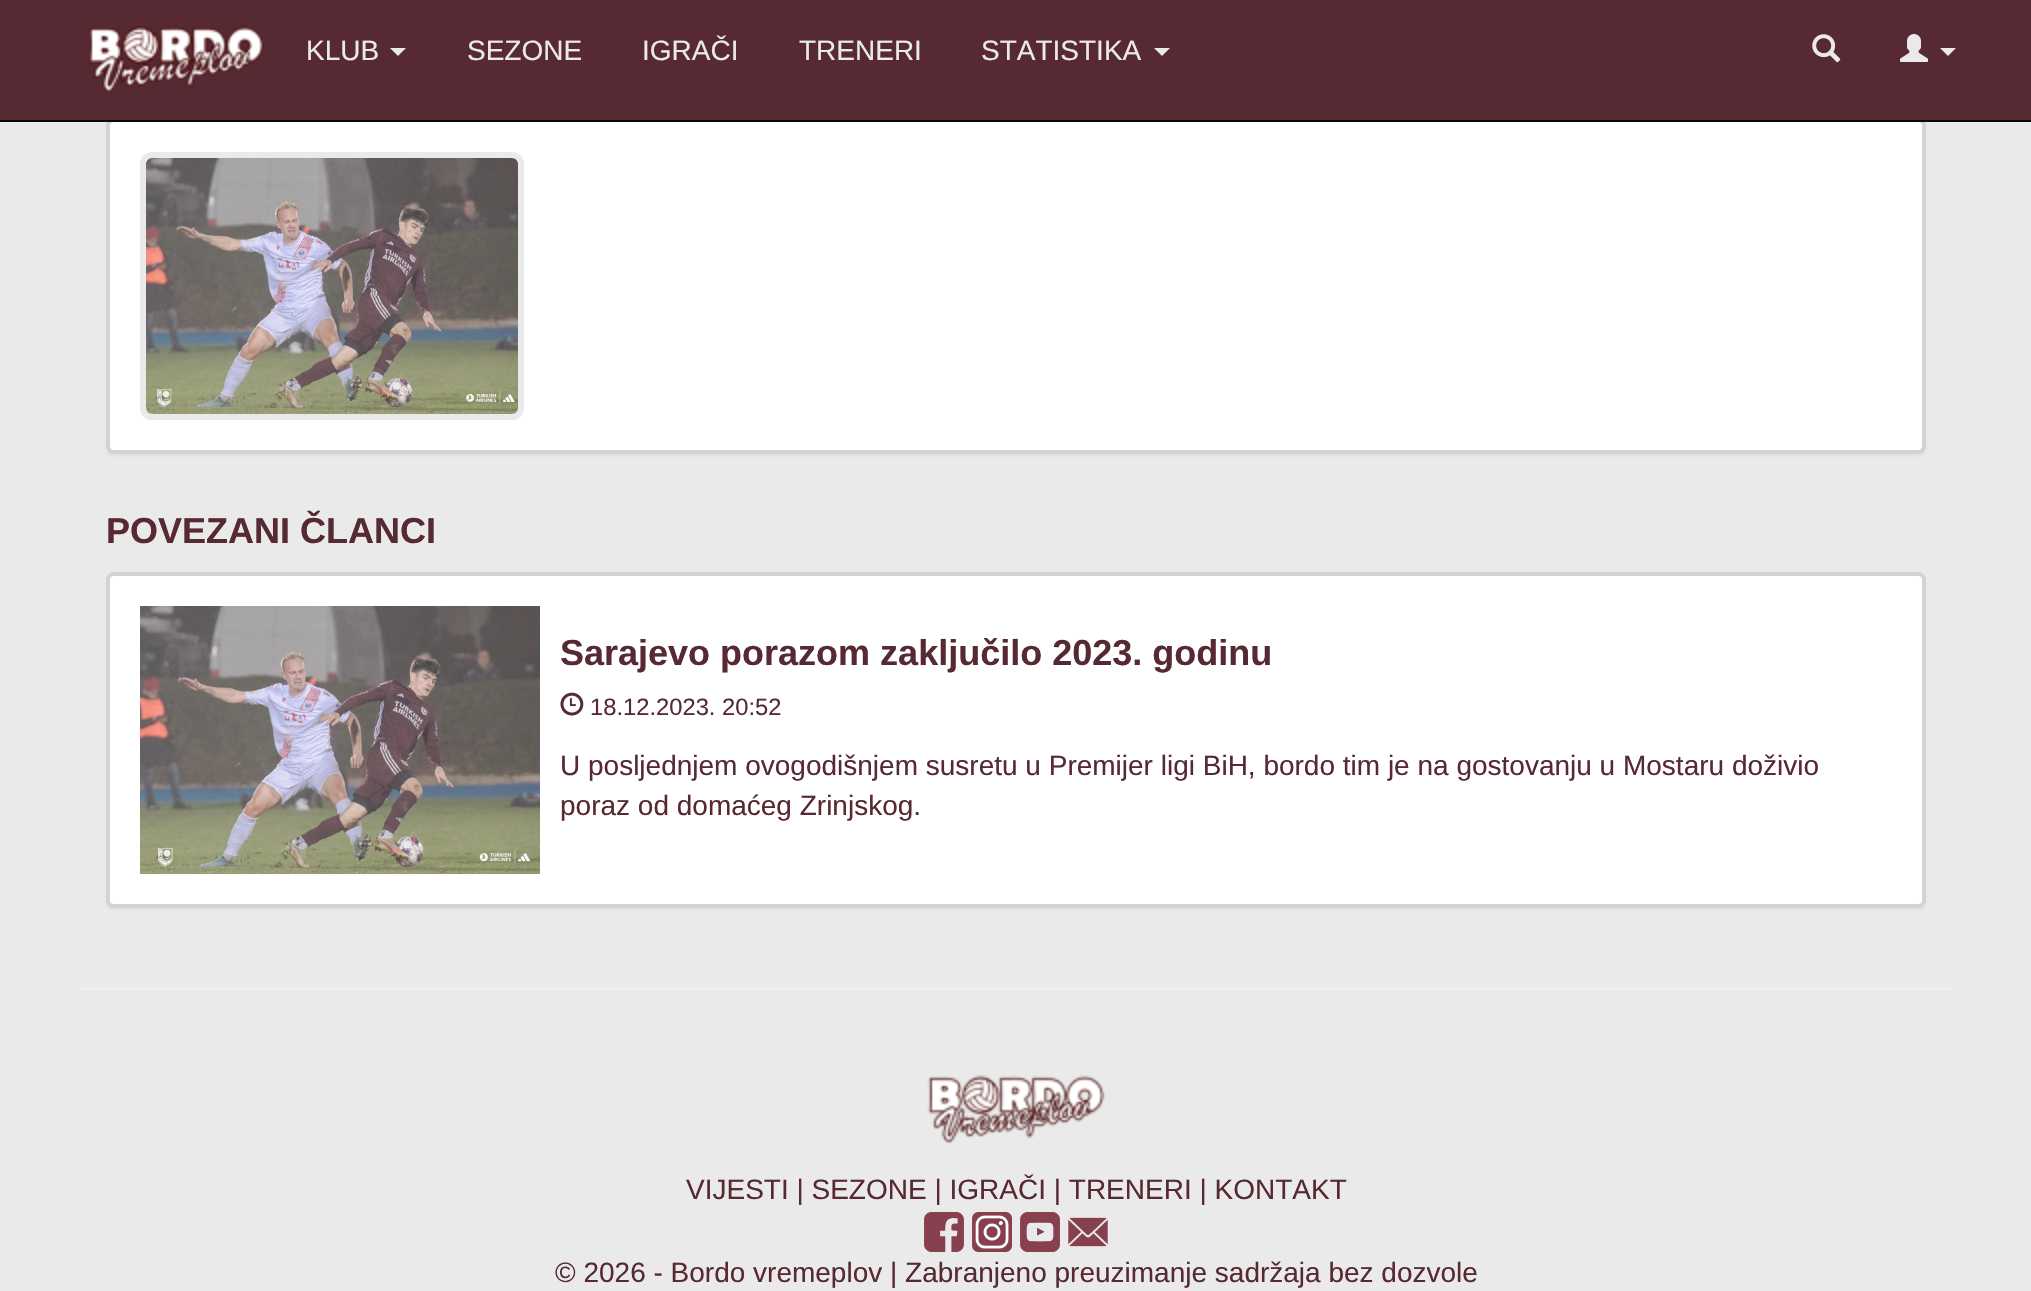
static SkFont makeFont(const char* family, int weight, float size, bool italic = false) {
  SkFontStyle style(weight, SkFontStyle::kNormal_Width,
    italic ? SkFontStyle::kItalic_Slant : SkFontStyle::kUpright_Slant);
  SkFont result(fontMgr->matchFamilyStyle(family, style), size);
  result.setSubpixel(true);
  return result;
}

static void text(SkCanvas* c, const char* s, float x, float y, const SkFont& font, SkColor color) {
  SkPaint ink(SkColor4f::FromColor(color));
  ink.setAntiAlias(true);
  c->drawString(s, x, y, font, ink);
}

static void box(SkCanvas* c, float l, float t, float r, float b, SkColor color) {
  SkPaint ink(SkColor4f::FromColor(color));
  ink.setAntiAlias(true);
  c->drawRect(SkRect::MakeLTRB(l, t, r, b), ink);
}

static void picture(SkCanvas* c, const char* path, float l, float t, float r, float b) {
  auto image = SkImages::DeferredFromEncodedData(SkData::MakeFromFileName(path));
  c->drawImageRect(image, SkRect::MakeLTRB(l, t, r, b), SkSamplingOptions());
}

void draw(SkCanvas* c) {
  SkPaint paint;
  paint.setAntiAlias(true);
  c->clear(0xffeaeaea);
  paint.setColor(0x0d000000);
  paint.setMaskFilter(SkMaskFilter::MakeBlur(kNormal_SkBlurStyle, 1));
  c->drawRoundRect(SkRect::MakeLTRB(106, 120, 1926, 456), 8, 8, paint);
  paint.setMaskFilter(nullptr);
  paint.setColor(0xffffffff);
  c->drawRoundRect(SkRect::MakeLTRB(108, 120, 1924, 452), 6, 6, paint);
  paint.setStyle(SkPaint::kStroke_Style);
  paint.setStrokeWidth(4);
  paint.setColor(0xffd3d3d3);
  c->drawRoundRect(SkRect::MakeLTRB(108, 120, 1924, 452), 6, 6, paint);
  box(c, 0, 0, 2031, 120, 0xff572932);
  box(c, 0, 120, 2031, 122, 0xff080808);
  picture(c, "img_01.png", 88, 25, 265, 93);
  SkFont face1 = makeFont("Liberation Sans", 400, 28);
  text(c, "KLUB", 306, 60, face1, 0xffeaeaea);
  paint.setStyle(SkPaint::kFill_Style);
  paint.setColor(0xffeaeaea);
  c->drawPath(SkPathBuilder().moveTo(390, 48).lineTo(406, 48).lineTo(398, 56).close().detach(), paint);
  text(c, "SEZONE", 467, 60, face1, 0xffeaeaea);
  text(c, "IGRAČI", 642, 60, face1, 0xffeaeaea);
  text(c, "TRENERI", 799, 60, face1, 0xffeaeaea);
  text(c, "STATISTIKA", 981, 60, face1, 0xffeaeaea);
  c->drawPath(SkPathBuilder().moveTo(1154, 48).lineTo(1170, 48).lineTo(1162, 56).close().detach(), paint);
  picture(c, "img_02.png", 1812, 34, 1841, 63);
  picture(c, "img_03.png", 1900, 34, 1928, 62);
  c->drawPath(SkPathBuilder().moveTo(1940, 48).lineTo(1956, 48).lineTo(1948, 56).close().detach(), paint);
  paint.setStyle(SkPaint::kStroke_Style);
  paint.setStrokeWidth(6);
  c->drawRoundRect(SkRect::MakeLTRB(143, 155, 521, 417), 9, 9, paint);
  picture(c, "img_04.png", 146, 158, 518, 414);
  SkFont face2 = makeFont("Liberation Sans", 700, 36);
  text(c, "POVEZANI ČLANCI", 106, 543, face2, 0xff572932);
  paint.setStyle(SkPaint::kFill_Style);
  paint.setColor(0x0d000000);
  paint.setMaskFilter(SkMaskFilter::MakeBlur(kNormal_SkBlurStyle, 1));
  c->drawRoundRect(SkRect::MakeLTRB(106, 574, 1926, 910), 8, 8, paint);
  paint.setMaskFilter(nullptr);
  paint.setColor(0xffffffff);
  c->drawRoundRect(SkRect::MakeLTRB(108, 574, 1924, 906), 6, 6, paint);
  paint.setStyle(SkPaint::kStroke_Style);
  paint.setStrokeWidth(4);
  paint.setColor(0xffd3d3d3);
  c->drawRoundRect(SkRect::MakeLTRB(108, 574, 1924, 906), 6, 6, paint);
  picture(c, "img_05.png", 140, 606, 540, 874);
  text(c, "Sarajevo porazom zaključilo 2023. godinu", 560, 665, face2, 0xff572932);
  picture(c, "img_06.png", 560, 692, 584, 716);
  SkFont face3 = makeFont("Liberation Sans", 400, 23.75f);
  text(c, "18.12.2023. 20:52", 590, 715, face3, 0xff572932);
  text(c, "U posljednjem ovogodišnjem susretu u Premijer ligi BiH, bordo tim je na gostovanju u Mostaru doživio", 560, 775, face1, 0xff572932);
  text(c, "poraz od domaćeg Zrinjskog.", 560, 815, face1, 0xff572932);
  box(c, 76, 988, 1956, 990, 0xffeeeeee);
  picture(c, "img_07.png", 927, 1075, 1105, 1144);
  text(c, "VIJESTI | SEZONE | IGRAČI | TRENERI | KONTAKT", 686, 1199, face1, 0xff572932);
  picture(c, "img_08.png", 924, 1212, 964, 1252);
  picture(c, "img_09.png", 972, 1212, 1012, 1252);
  picture(c, "img_10.png", 1020, 1212, 1060, 1252);
  picture(c, "img_11.png", 1068, 1217, 1108, 1247);
  text(c, "© 2026 - Bordo vremeplov | Zabranjeno preuzimanje sadržaja bez dozvole", 555, 1282, face1, 0xff572932);
}
